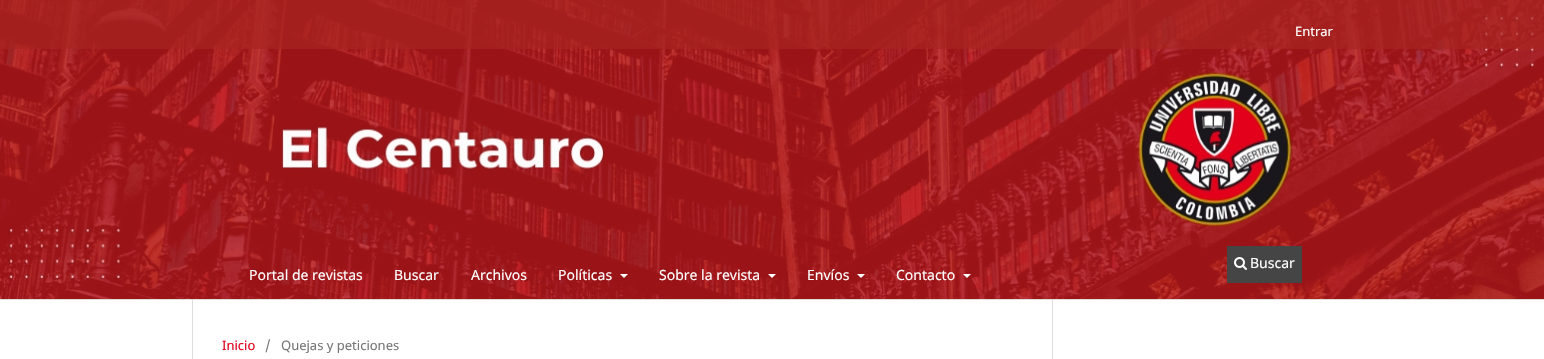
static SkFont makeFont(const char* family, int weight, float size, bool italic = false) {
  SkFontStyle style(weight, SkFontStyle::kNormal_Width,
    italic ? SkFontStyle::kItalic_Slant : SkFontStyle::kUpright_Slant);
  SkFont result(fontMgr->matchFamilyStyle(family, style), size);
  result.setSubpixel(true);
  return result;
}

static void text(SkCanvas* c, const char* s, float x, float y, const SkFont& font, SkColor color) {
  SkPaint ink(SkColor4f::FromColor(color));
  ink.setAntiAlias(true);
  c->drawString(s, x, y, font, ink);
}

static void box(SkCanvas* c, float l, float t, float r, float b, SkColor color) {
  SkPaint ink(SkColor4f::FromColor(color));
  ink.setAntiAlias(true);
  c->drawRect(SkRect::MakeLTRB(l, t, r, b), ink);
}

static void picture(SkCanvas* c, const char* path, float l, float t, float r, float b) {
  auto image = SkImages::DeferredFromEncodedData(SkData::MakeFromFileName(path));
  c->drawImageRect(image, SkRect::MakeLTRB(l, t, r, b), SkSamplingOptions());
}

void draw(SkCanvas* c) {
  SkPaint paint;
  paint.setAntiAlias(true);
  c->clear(0xffffffff);
  picture(c, "img_01.png", 0, 0, 1544, 299);
  box(c, 0, 299, 1544, 300, 0xffdddddd);
  box(c, 0, 0, 1544, 49, 0xb3a7231f);
  SkFont face1 = makeFont("Noto Sans", 400, 13);
  text(c, "Entrar", 1295, 36, face1, 0xffffffff);
  box(c, 1227, 246, 1302, 283, 0xff454545);
  picture(c, "img_02.png", 1234, 257, 1247, 270);
  SkFont face2 = makeFont("Noto Sans", 400, 14);
  text(c, "Buscar", 1250, 268, face2, 0xffffffff);
  text(c, "Portal de revistas", 249, 280, face2, 0xffffffff);
  text(c, "Buscar", 394, 280, face2, 0xffffffff);
  text(c, "Archivos", 471, 280, face2, 0xffffffff);
  text(c, "Políticas", 558, 280, face2, 0xffffffff);
  paint.setColor(0xffffffff);
  c->drawPath(SkPathBuilder().moveTo(620, 274).lineTo(628, 274).lineTo(624, 278).close().detach(), paint);
  text(c, "Sobre la revista", 659, 280, face2, 0xffffffff);
  c->drawPath(SkPathBuilder().moveTo(768, 274).lineTo(776, 274).lineTo(772, 278).close().detach(), paint);
  text(c, "Envíos", 807, 280, face2, 0xffffffff);
  c->drawPath(SkPathBuilder().moveTo(857, 274).lineTo(865, 274).lineTo(861, 278).close().detach(), paint);
  text(c, "Contacto", 896, 280, face2, 0xffffffff);
  c->drawPath(SkPathBuilder().moveTo(963, 274).lineTo(971, 274).lineTo(967, 278).close().detach(), paint);
  box(c, 192, 300, 193, 359, 0xffdddddd);
  text(c, "Inicio", 222, 350, face1, 0xffe1011b);
  text(c, "/", 265, 350, face1, 0xff757575);
  text(c, "Quejas y peticiones", 281, 350, face1, 0xff757575);
  box(c, 1052, 300, 1053, 359, 0xffdddddd);
}
